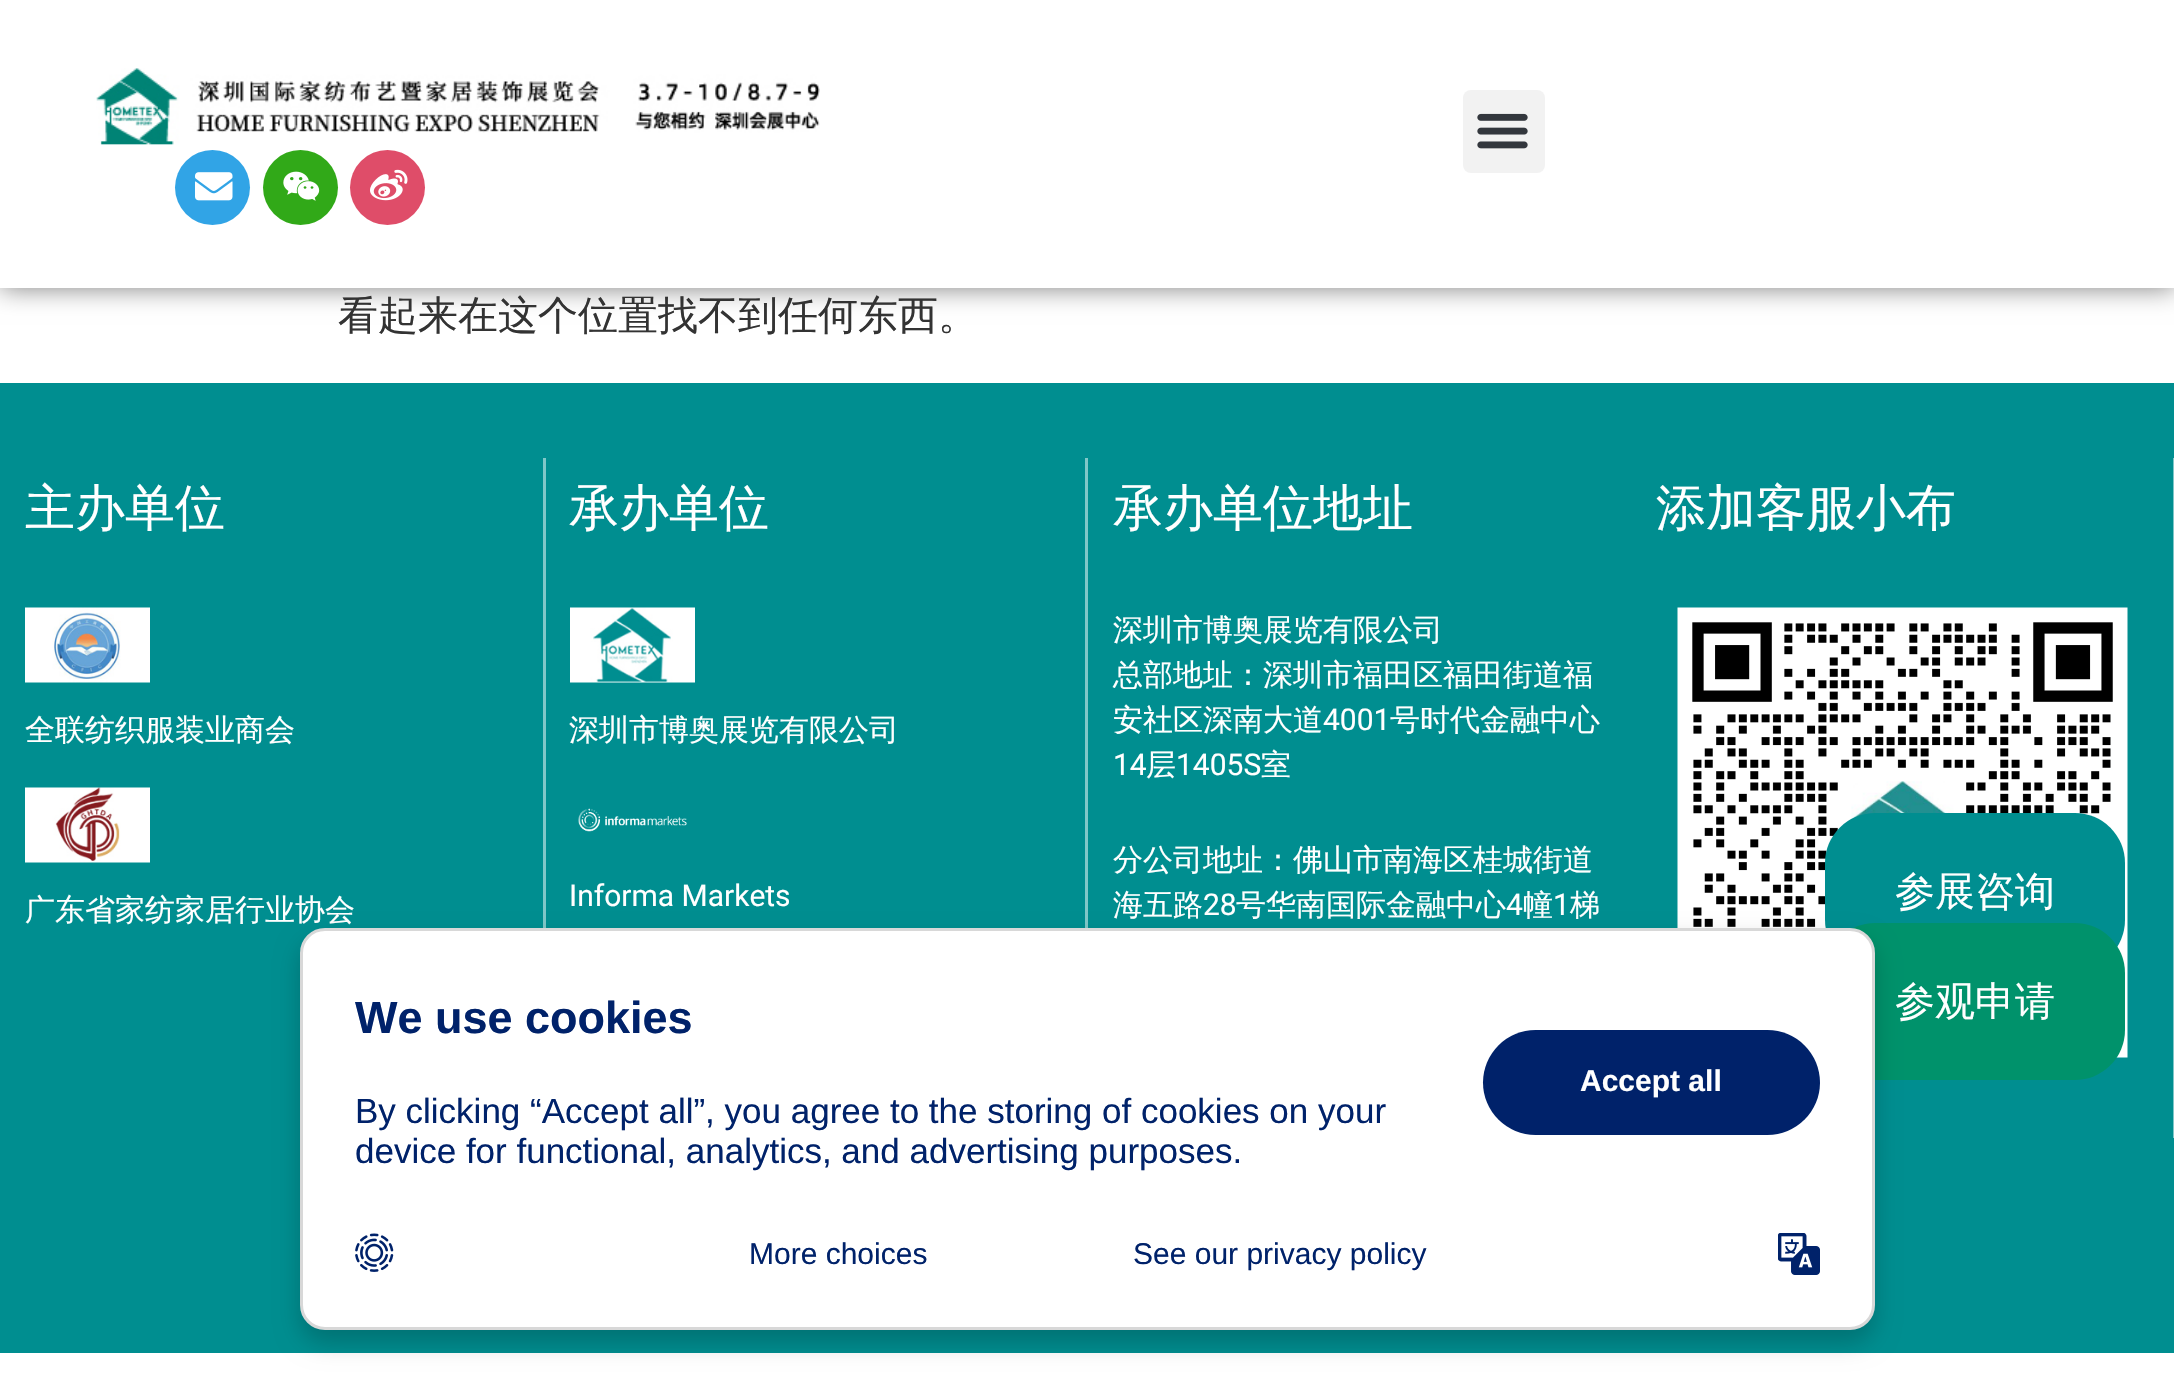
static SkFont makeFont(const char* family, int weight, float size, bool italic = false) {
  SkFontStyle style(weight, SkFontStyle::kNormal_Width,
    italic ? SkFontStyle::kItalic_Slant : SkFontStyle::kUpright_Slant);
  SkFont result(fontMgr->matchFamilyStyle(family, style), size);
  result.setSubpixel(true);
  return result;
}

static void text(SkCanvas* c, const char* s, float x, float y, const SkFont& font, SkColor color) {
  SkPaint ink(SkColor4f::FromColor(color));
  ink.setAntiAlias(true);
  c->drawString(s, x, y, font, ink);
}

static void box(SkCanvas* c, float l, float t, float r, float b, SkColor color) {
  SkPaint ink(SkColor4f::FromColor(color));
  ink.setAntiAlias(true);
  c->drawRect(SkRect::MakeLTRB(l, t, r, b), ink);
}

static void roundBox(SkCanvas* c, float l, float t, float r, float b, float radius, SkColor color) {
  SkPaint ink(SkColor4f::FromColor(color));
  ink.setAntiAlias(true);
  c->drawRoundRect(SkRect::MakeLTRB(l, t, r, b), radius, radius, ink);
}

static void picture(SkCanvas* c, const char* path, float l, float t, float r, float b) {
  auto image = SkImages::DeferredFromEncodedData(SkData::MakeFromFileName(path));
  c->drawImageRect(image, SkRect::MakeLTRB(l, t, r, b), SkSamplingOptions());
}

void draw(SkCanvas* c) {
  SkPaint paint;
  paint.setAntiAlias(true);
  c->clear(0xffffffff);
  c->save();
  c->clipPath(SkPathBuilder(SkPathFillType::kEvenOdd).moveTo(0, 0).lineTo(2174, 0).lineTo(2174, 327).lineTo(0, 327).close().moveTo(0, 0).lineTo(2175, 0).lineTo(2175, 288).lineTo(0, 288).close().detach(), true);
  paint.setColor(0x80000000);
  paint.setMaskFilter(SkMaskFilter::MakeBlur(kNormal_SkBlurStyle, 12.5f));
  c->drawRect(SkRect::MakeLTRB(0, 0, 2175, 288), paint);
  paint.setMaskFilter(nullptr);
  c->restore();
  picture(c, "img_01.png", 96, 68, 820, 145);
  paint.setColor(0xff31a4e6);
  c->drawCircle(212.5f, 187.5f, 37.5f, paint);
  picture(c, "img_02.png", 195, 172, 233, 201);
  paint.setColor(0xff31a918);
  c->drawCircle(300.5f, 187.5f, 37.5f, paint);
  picture(c, "img_03.png", 283, 171, 320, 201);
  paint.setColor(0xffdf4d69);
  c->drawCircle(387.5f, 187.5f, 37.5f, paint);
  picture(c, "img_04.png", 370, 169, 408, 201);
  roundBox(c, 1463, 90, 1545, 173, 8, 0xfff2f2f2);
  picture(c, "img_05.png", 1477, 113, 1528, 149);
  SkFont face1 = makeFont("WenQuanYi Zen Hei", 500, 40);
  text(c, "看起来在这个位置找不到任何东西。", 338, 329, face1, 0xff333333);
  box(c, 0, 383, 2174, 1353, 0xff008e90);
  box(c, 543, 458, 546, 928, 0xff80c7c8);
  SkFont face2 = makeFont("WenQuanYi Zen Hei", 500, 50);
  text(c, "主办单位", 25, 525, face2, 0xffffffff);
  picture(c, "img_06.png", 25, 607, 150, 683);
  SkFont face3 = makeFont("WenQuanYi Zen Hei", 500, 30);
  text(c, "全联纺织服装业商会", 25, 740, face3, 0xffffffff);
  picture(c, "img_07.png", 25, 787, 150, 863);
  text(c, "广东省家纺家居行业协会", 25, 920, face3, 0xffffffff);
  box(c, 1085, 458, 1088, 928, 0xff80c7c8);
  text(c, "承办单位", 569, 525, face2, 0xffffffff);
  picture(c, "img_08.png", 570, 607, 695, 683);
  text(c, "深圳市博奥展览有限公司", 569, 740, face3, 0xffffffff);
  picture(c, "img_09.png", 578, 808, 687, 832);
  SkFont face4 = makeFont("Roboto", 400, 30);
  text(c, "Informa Markets", 569, 906, face4, 0xffffffff);
  text(c, "承办单位地址", 1113, 525, face2, 0xffffffff);
  text(c, "深圳市博奥展览有限公司", 1113, 640, face3, 0xffffffff);
  text(c, "总部地址：深圳市福田区福田街道福", 1113, 685, face3, 0xffffffff);
  text(c, "安社区深南大道", 1113, 730, face3, 0xffffffff);
  text(c, "4001", 1323, 730, face4, 0xffffffff);
  text(c, "号时代金融中心", 1390, 730, face3, 0xffffffff);
  text(c, "14", 1113, 775, face4, 0xffffffff);
  text(c, "层", 1146, 775, face3, 0xffffffff);
  text(c, "1405S", 1176, 775, face4, 0xffffffff);
  text(c, "室", 1261, 775, face3, 0xffffffff);
  text(c, "分公司地址：佛山市南海区桂城街道", 1113, 870, face3, 0xffffffff);
  text(c, "海五路", 1113, 915, face3, 0xffffffff);
  text(c, "28", 1203, 915, face4, 0xffffffff);
  text(c, "号华南国际金融中心", 1236, 915, face3, 0xffffffff);
  text(c, "4", 1506, 915, face4, 0xffffffff);
  text(c, "幢", 1523, 915, face3, 0xffffffff);
  text(c, "1", 1553, 915, face4, 0xffffffff);
  text(c, "梯", 1570, 915, face3, 0xffffffff);
  box(c, 2173, 458, 2174, 1138, 0xff80c7c8);
  text(c, "添加客服小布", 1656, 525, face2, 0xffffffff);
  picture(c, "img_10.png", 1677, 607, 2128, 1058);
  roundBox(c, 1825, 813, 2125, 970, 50, 0xff008e90);
  text(c, "参展咨询", 1895, 905, face1, 0xffffffff);
  roundBox(c, 1825, 923, 2125, 1080, 50, 0xff00926b);
  text(c, "参观申请", 1895, 1015, face1, 0xffffffff);
  paint.setColor(0x33000000);
  paint.setMaskFilter(SkMaskFilter::MakeBlur(kNormal_SkBlurStyle, 12.5f));
  c->drawRoundRect(SkRect::MakeLTRB(300, 940, 1875, 1343), 25, 25, paint);
  paint.setMaskFilter(nullptr);
  paint.setColor(0xffffffff);
  c->drawRoundRect(SkRect::MakeLTRB(301.5f, 929.5f, 1873.5f, 1328.5f), 23.5f, 23.5f, paint);
  paint.setStyle(SkPaint::kStroke_Style);
  paint.setStrokeWidth(3);
  paint.setColor(0xffd8d8d8);
  c->drawRoundRect(SkRect::MakeLTRB(301.5f, 929.5f, 1873.5f, 1328.5f), 23.5f, 23.5f, paint);
  SkFont face5 = makeFont("Liberation Sans", 700, 45);
  text(c, "We use cookies", 355, 1033, face5, 0xff00226a);
  SkFont face6 = makeFont("Liberation Sans", 400, 35);
  text(c, "By clicking “Accept all”, you agree to the storing of cookies on your", 355, 1123, face6, 0xff00226a);
  text(c, "device for functional, analytics, and advertising purposes.", 355, 1163, face6, 0xff00226a);
  roundBox(c, 1483, 1030, 1820, 1135, 52.5f, 0xff00226a);
  SkFont face7 = makeFont("Liberation Sans", 700, 30);
  text(c, "Accept all", 1580, 1091, face7, 0xffffffff);
  picture(c, "img_11.png", 355, 1233, 394, 1272);
  SkFont face8 = makeFont("Liberation Sans", 400, 30);
  text(c, "More choices", 749, 1264, face8, 0xff00226a);
  text(c, "See our privacy policy", 1133, 1264, face8, 0xff00226a);
  picture(c, "img_12.png", 1778, 1233, 1820, 1275);
}
